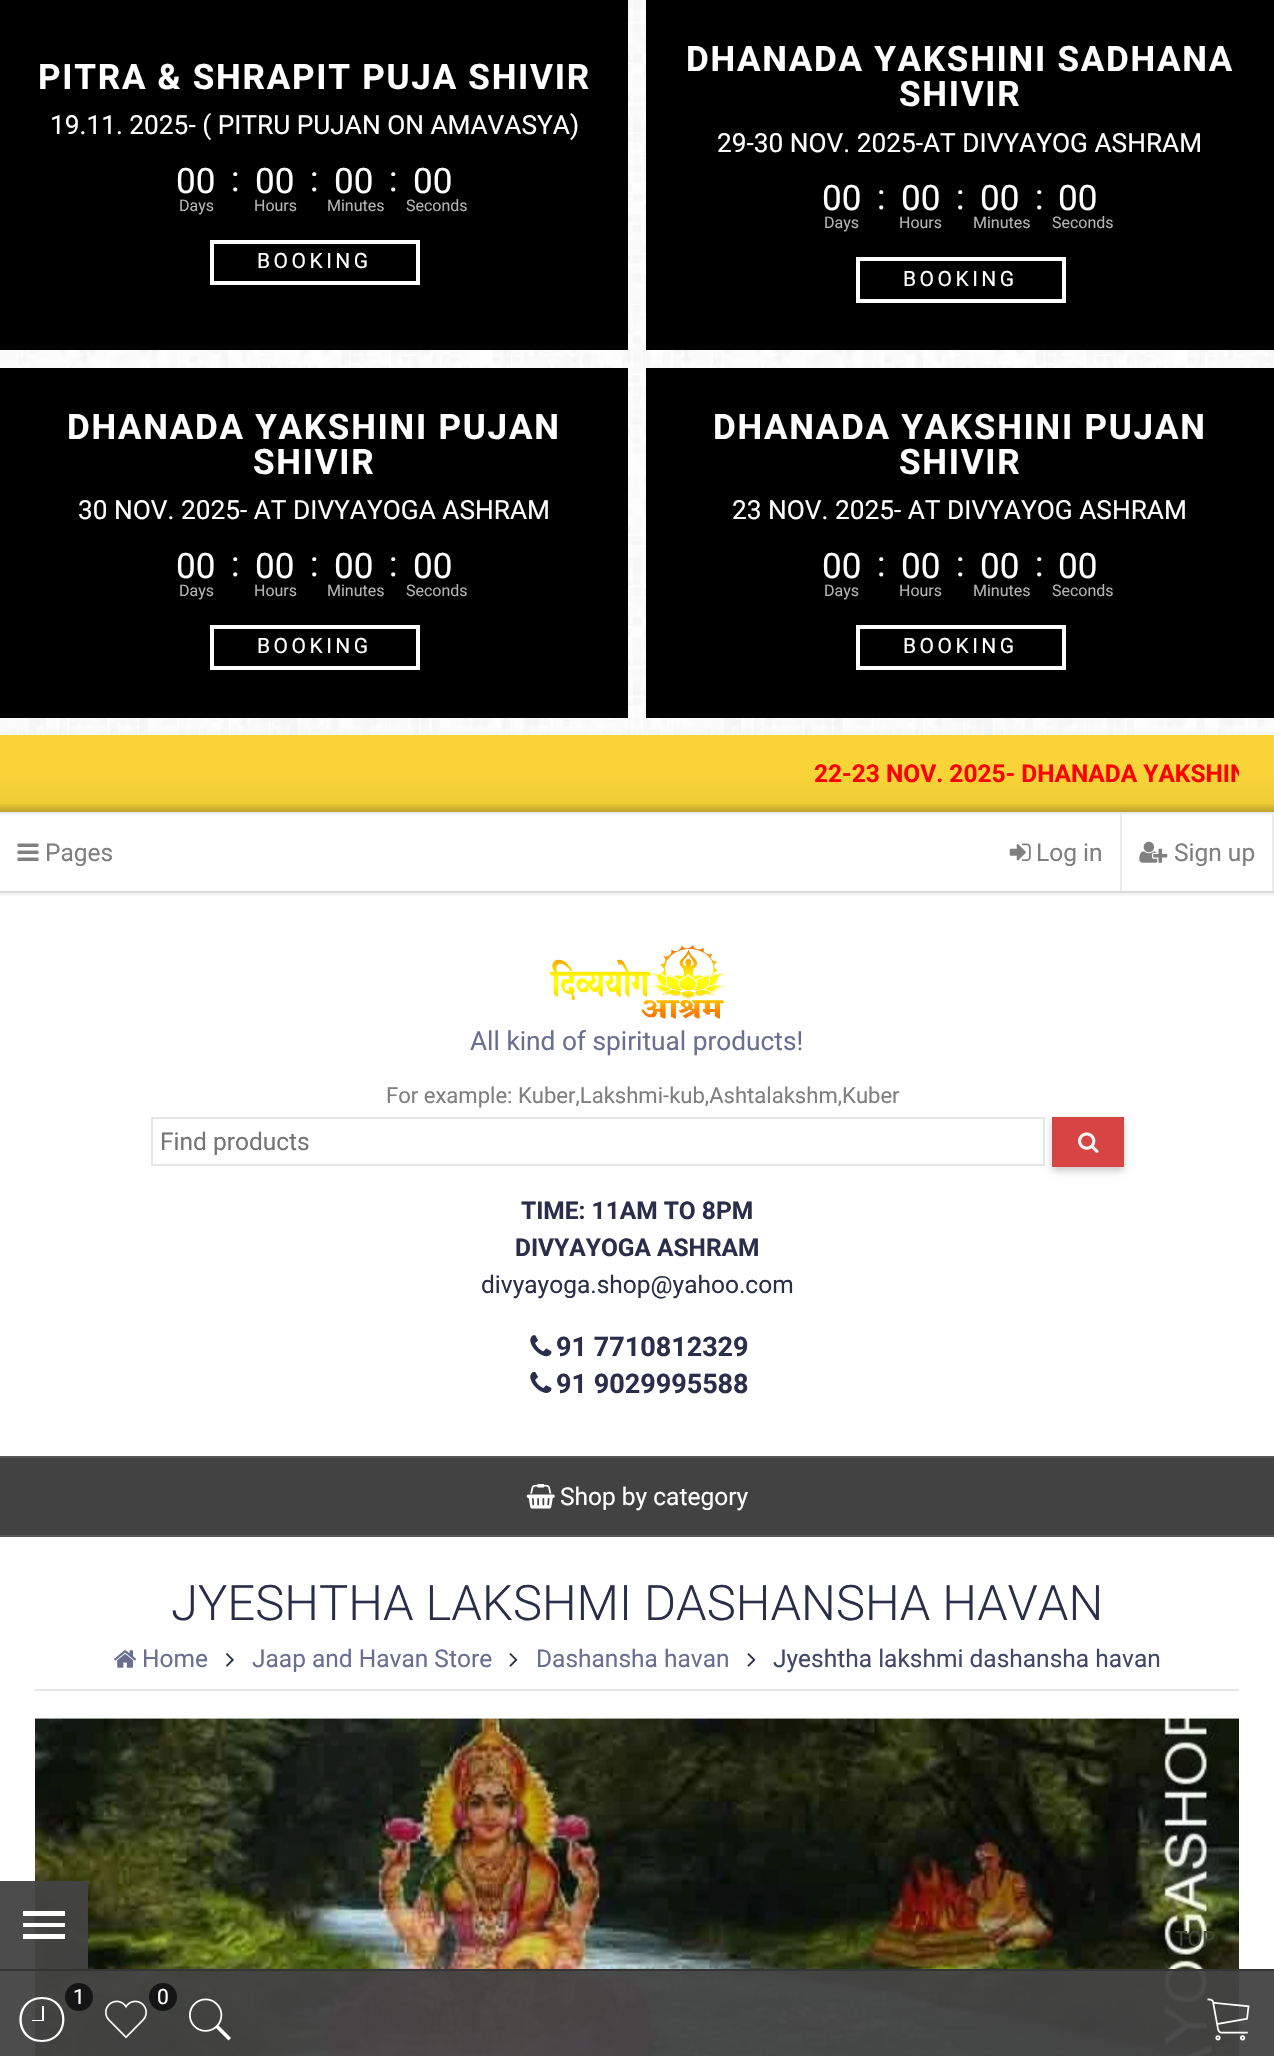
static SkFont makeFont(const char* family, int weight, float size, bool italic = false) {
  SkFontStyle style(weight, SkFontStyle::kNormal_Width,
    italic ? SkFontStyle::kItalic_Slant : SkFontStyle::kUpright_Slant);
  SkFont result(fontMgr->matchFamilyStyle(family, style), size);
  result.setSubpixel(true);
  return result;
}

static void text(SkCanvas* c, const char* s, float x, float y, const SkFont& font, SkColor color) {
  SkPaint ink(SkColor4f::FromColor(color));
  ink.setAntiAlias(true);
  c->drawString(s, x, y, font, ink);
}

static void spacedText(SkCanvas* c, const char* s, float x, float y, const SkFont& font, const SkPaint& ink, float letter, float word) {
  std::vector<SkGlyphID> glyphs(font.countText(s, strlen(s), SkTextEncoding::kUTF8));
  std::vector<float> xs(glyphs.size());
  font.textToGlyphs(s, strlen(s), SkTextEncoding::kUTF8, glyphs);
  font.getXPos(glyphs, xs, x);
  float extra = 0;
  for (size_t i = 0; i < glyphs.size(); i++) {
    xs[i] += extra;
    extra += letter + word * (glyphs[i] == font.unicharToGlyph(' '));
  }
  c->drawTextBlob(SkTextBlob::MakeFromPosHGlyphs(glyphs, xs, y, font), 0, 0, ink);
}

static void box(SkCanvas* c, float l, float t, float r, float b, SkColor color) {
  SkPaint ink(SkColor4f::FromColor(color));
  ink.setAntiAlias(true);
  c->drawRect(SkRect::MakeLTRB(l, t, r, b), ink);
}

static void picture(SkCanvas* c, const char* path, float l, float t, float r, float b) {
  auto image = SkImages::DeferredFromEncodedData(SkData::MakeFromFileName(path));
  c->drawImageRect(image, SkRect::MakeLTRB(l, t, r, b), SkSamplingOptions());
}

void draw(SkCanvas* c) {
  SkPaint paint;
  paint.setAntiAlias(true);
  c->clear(0xffffffff);
  picture(c, "img_01.png", 0, 0, 1274, 735);
  box(c, 0, 0, 628, 350, 0xff000000);
  SkFont face1 = makeFont("Roboto", 700, 35);
  paint.setColor(0xffffffff);
  spacedText(c, "PITRA & SHRAPIT PUJA SHIVIR", 38, 89, face1, paint, 1.75f, 0);
  SkFont face2 = makeFont("Roboto", 400, 26.25f);
  text(c, "19.11. 2025- ( PITRU PUJAN ON AMAVASYA)", 50, 134, face2, 0xffffffff);
  SkFont face3 = makeFont("Roboto", 400, 35);
  text(c, "00", 176, 193, face3, 0xffffffff);
  text(c, ":", 231, 191, face3, 0xffffffff);
  SkFont face4 = makeFont("Roboto", 400, 16);
  text(c, "Days", 179, 211, face4, 0xffb3b3b3);
  text(c, "00", 255, 193, face3, 0xffffffff);
  text(c, ":", 310, 191, face3, 0xffffffff);
  text(c, "Hours", 254, 211, face4, 0xffb3b3b3);
  text(c, "00", 334, 193, face3, 0xffffffff);
  text(c, ":", 389, 191, face3, 0xffffffff);
  text(c, "Minutes", 327, 211, face4, 0xffb3b3b3);
  text(c, "00", 413, 193, face3, 0xffffffff);
  text(c, "Seconds", 406, 211, face4, 0xffb3b3b3);
  paint.setStyle(SkPaint::kStroke_Style);
  paint.setStrokeWidth(4);
  c->drawRect(SkRect::MakeLTRB(212, 242, 418, 283), paint);
  SkFont face5 = makeFont("Roboto", 400, 21);
  paint.setStyle(SkPaint::kFill_Style);
  spacedText(c, "BOOKING", 257, 268, face5, paint, 3.5f, 0);
  box(c, 646, 0, 1274, 350, 0xff000000);
  spacedText(c, "DHANADA YAKSHINI SADHANA", 686, 71, face1, paint, 1.75f, 0);
  spacedText(c, "SHIVIR", 899, 106, face1, paint, 1.75f, 0);
  text(c, "29-30 NOV. 2025-AT DIVYAYOG ASHRAM", 717, 152, face2, 0xffffffff);
  text(c, "00", 822, 210, face3, 0xffffffff);
  text(c, ":", 877, 209, face3, 0xffffffff);
  text(c, "Days", 824, 228, face4, 0xffb3b3b3);
  text(c, "00", 901, 210, face3, 0xffffffff);
  text(c, ":", 956, 209, face3, 0xffffffff);
  text(c, "Hours", 899, 228, face4, 0xffb3b3b3);
  text(c, "00", 980, 210, face3, 0xffffffff);
  text(c, ":", 1035, 209, face3, 0xffffffff);
  text(c, "Minutes", 973, 228, face4, 0xffb3b3b3);
  text(c, "00", 1058, 210, face3, 0xffffffff);
  text(c, "Seconds", 1052, 228, face4, 0xffb3b3b3);
  paint.setStyle(SkPaint::kStroke_Style);
  c->drawRect(SkRect::MakeLTRB(858, 259, 1064, 301), paint);
  paint.setStyle(SkPaint::kFill_Style);
  spacedText(c, "BOOKING", 903, 286, face5, paint, 3.5f, 0);
  box(c, 0, 368, 628, 718, 0xff000000);
  spacedText(c, "DHANADA YAKSHINI PUJAN", 67, 439, face1, paint, 1.75f, 0);
  spacedText(c, "SHIVIR", 253, 474, face1, paint, 1.75f, 0);
  text(c, "30 NOV. 2025- AT DIVYAYOGA ASHRAM", 78, 519, face2, 0xffffffff);
  text(c, "00", 176, 578, face3, 0xffffffff);
  text(c, ":", 231, 576, face3, 0xffffffff);
  text(c, "Days", 179, 596, face4, 0xffb3b3b3);
  text(c, "00", 255, 578, face3, 0xffffffff);
  text(c, ":", 310, 576, face3, 0xffffffff);
  text(c, "Hours", 254, 596, face4, 0xffb3b3b3);
  text(c, "00", 334, 578, face3, 0xffffffff);
  text(c, ":", 389, 576, face3, 0xffffffff);
  text(c, "Minutes", 327, 596, face4, 0xffb3b3b3);
  text(c, "00", 413, 578, face3, 0xffffffff);
  text(c, "Seconds", 406, 596, face4, 0xffb3b3b3);
  paint.setStyle(SkPaint::kStroke_Style);
  c->drawRect(SkRect::MakeLTRB(212, 627, 418, 668), paint);
  paint.setStyle(SkPaint::kFill_Style);
  spacedText(c, "BOOKING", 257, 653, face5, paint, 3.5f, 0);
  box(c, 646, 368, 1274, 718, 0xff000000);
  spacedText(c, "DHANADA YAKSHINI PUJAN", 713, 439, face1, paint, 1.75f, 0);
  spacedText(c, "SHIVIR", 899, 474, face1, paint, 1.75f, 0);
  text(c, "23 NOV. 2025- AT DIVYAYOG ASHRAM", 732, 519, face2, 0xffffffff);
  text(c, "00", 822, 578, face3, 0xffffffff);
  text(c, ":", 877, 576, face3, 0xffffffff);
  text(c, "Days", 824, 596, face4, 0xffb3b3b3);
  text(c, "00", 901, 578, face3, 0xffffffff);
  text(c, ":", 956, 576, face3, 0xffffffff);
  text(c, "Hours", 899, 596, face4, 0xffb3b3b3);
  text(c, "00", 980, 578, face3, 0xffffffff);
  text(c, ":", 1035, 576, face3, 0xffffffff);
  text(c, "Minutes", 973, 596, face4, 0xffb3b3b3);
  text(c, "00", 1058, 578, face3, 0xffffffff);
  text(c, "Seconds", 1052, 596, face4, 0xffb3b3b3);
  paint.setStyle(SkPaint::kStroke_Style);
  c->drawRect(SkRect::MakeLTRB(858, 627, 1064, 668), paint);
  paint.setStyle(SkPaint::kFill_Style);
  spacedText(c, "BOOKING", 903, 653, face5, paint, 3.5f, 0);
  {
    const SkColor colors[] = {0xfff8d438, 0xffecc935};
    const float stops[] = {0.5f, 1};
    const SkPoint ends[] = {{637, 735}, {637, 812}};
    paint.setShader(SkGradientShader::MakeLinear(ends, colors, stops, 2, SkTileMode::kClamp));
    paint.setAlpha(255);
  }
  c->drawRect(SkRect::MakeLTRB(0, 735, 1274, 812), paint);
  c->save();
  c->clipRect(SkRect::MakeLTRB(35, 761, 1239, 786));
  SkFont face6 = makeFont("Roboto", 700, 24.5f);
  text(c, "22-23 NOV. 2025- DHANADA YAKSHIN", 814, 782, face6, 0xffff0000);
  c->restore();
  {
    const SkColor colors[] = {0x00000000, 0x33000000};
    const float stops[] = {0, 1};
    const SkPoint ends[] = {{637, 803}, {637, 812}};
    paint.setShader(SkGradientShader::MakeLinear(ends, colors, stops, 2, SkTileMode::kClamp));
    paint.setAlpha(255);
  }
  c->drawRect(SkRect::MakeLTRB(0, 804, 1274, 812), paint);
  box(c, 0, 812, 1274, 814, 0xffebebeb);
  box(c, 0, 891, 1274, 893, 0xffebebeb);
  picture(c, "img_02.png", 17, 843, 39, 861);
  SkFont face7 = makeFont("Roboto", 400, 24.5f);
  text(c, "Pages", 45, 861, face7, 0xff7f7f7f);
  box(c, 1120, 814, 1122, 891, 0xffebebeb);
  picture(c, "img_03.png", 1009, 843, 1031, 861);
  text(c, "Log in", 1036, 861, face7, 0xff7f7f7f);
  box(c, 1272, 814, 1274, 891, 0xffebebeb);
  picture(c, "img_04.png", 1139, 841, 1168, 863);
  text(c, "Sign up", 1174, 861, face7, 0xff7f7f7f);
  {
    const SkColor colors[] = {0x14000000, 0x00000000};
    const float stops[] = {0, 1};
    const SkPoint ends[] = {{637, 891}, {637, 898}};
    paint.setShader(SkGradientShader::MakeLinear(ends, colors, stops, 2, SkTileMode::kClamp));
    paint.setAlpha(255);
  }
  c->drawRect(SkRect::MakeLTRB(0, 891, 1274, 896), paint);
  picture(c, "img_05.png", 549, 945, 725, 1019);
  text(c, "All kind of spiritual products!", 470, 1050, face2, 0xff6a6f91);
  SkFont face8 = makeFont("Roboto", 400, 22.05f);
  text(c, "For example: Kuber,Lakshmi-kub,Ashtalakshm,Kuber", 386, 1103, face8, 0xff7f7f7f);
  paint.setStyle(SkPaint::kStroke_Style);
  paint.setStrokeWidth(2);
  paint.setShader(nullptr);
  paint.setColor(0xffe6e6e6);
  c->drawRect(SkRect::MakeLTRB(152, 1118, 1044, 1165), paint);
  text(c, "Find products", 160, 1150, face7, 0xff757575);
  paint.setStyle(SkPaint::kFill_Style);
  paint.setColor(0x33000000);
  paint.setMaskFilter(SkMaskFilter::MakeBlur(kNormal_SkBlurStyle, 3.5f));
  c->drawRect(SkRect::MakeLTRB(1052, 1120, 1124, 1171), paint);
  paint.setMaskFilter(nullptr);
  box(c, 1052, 1117, 1124, 1167, 0xffd74444);
  picture(c, "img_06.png", 1078, 1132, 1099, 1153);
  text(c, "TIME: 11AM TO 8PM", 521, 1219, face6, 0xff2b2e4a);
  text(c, "DIVYAYOGA ASHRAM", 515, 1256, face6, 0xff2b2e4a);
  text(c, "divyayoga.shop@yahoo.com", 481, 1293, face7, 0xff2b2e4a);
  picture(c, "img_07.png", 530, 1335, 552, 1357);
  SkFont face9 = makeFont("Roboto", 700, 27);
  text(c, "91 7710812329", 556, 1356, face9, 0xff2b2e4a);
  picture(c, "img_08.png", 530, 1371, 552, 1393);
  text(c, "91 9029995588", 556, 1393, face9, 0xff2b2e4a);
  box(c, 0, 1458, 1274, 1535, 0xff424242);
  box(c, 0, 1456, 1274, 1458, 0xff565656);
  box(c, 0, 1535, 1274, 1537, 0xff565656);
  picture(c, "img_09.png", 526, 1484, 555, 1509);
  text(c, "Shop by category", 560, 1505, face7, 0xffffffff);
  SkFont face10 = makeFont("Roboto", 300, 49);
  text(c, "JYESHTHA LAKSHMI DASHANSHA HAVAN", 171, 1620, face10, 0xff2b2e4a);
  box(c, 35, 1689, 1239, 1691, 0xffe6e6e6);
  picture(c, "img_10.png", 114, 1650, 137, 1668);
  text(c, "Home", 142, 1667, face7, 0xff6a6f91);
  picture(c, "img_11.png", 226, 1653, 234, 1667);
  text(c, "Jaap and Havan Store", 252, 1667, face7, 0xff6a6f91);
  picture(c, "img_12.png", 509, 1653, 518, 1667);
  text(c, "Dashansha havan", 536, 1667, face7, 0xff6a6f91);
  picture(c, "img_12.png", 747, 1653, 756, 1667);
  text(c, "Jyeshtha lakshmi dashansha havan", 773, 1667, face7, 0xff424769);
  picture(c, "img_13.png", 35, 1718, 1239, 2056);
  box(c, 0, 1881, 88, 1969, 0xf2424242);
  paint.setColor(0xffffffff);
  c->drawPath(SkPathBuilder().moveTo(23, 1939).lineTo(23, 1934).lineTo(65, 1934).lineTo(65, 1939).close().moveTo(23, 1927).lineTo(23, 1923).lineTo(65, 1923).lineTo(65, 1927).close().moveTo(23, 1911).lineTo(65, 1911).lineTo(65, 1916).lineTo(23, 1916).close().detach(), paint);
  box(c, 0, 1969, 1274, 2056, 0xf2424242);
  box(c, 0, 1969, 1274, 1971, 0xf2333333);
  text(c, "TOP", 1175, 1946, face5, 0xff424736);
  c->drawPath(SkPathBuilder().moveTo(42, 1997).cubicTo(12, 1997, 12, 2042, 42, 2042).cubicTo(72, 2042, 72, 1997, 42, 1997).close().moveTo(42, 2040).cubicTo(15, 2040, 15, 1999, 42, 1999).cubicTo(69, 1999, 69, 2040, 42, 2040).close().moveTo(42, 2020).lineTo(32, 2020).lineTo(32, 2021).lineTo(44, 2021).lineTo(44, 2006).lineTo(42, 2006).close().detach(), paint);
  paint.setColor(0xff151515);
  c->drawCircle(79, 1997, 14, paint);
  text(c, "1", 73, 2004, face5, 0xffffffff);
  c->drawCircle(163, 1997, 14, paint);
  text(c, "0", 157, 2004, face5, 0xffffffff);
  picture(c, "img_14.png", 105, 2000, 147, 2039);
  picture(c, "img_15.png", 189, 1998, 231, 2041);
  picture(c, "img_16.png", 1207, 1998, 1250, 2041);
}
